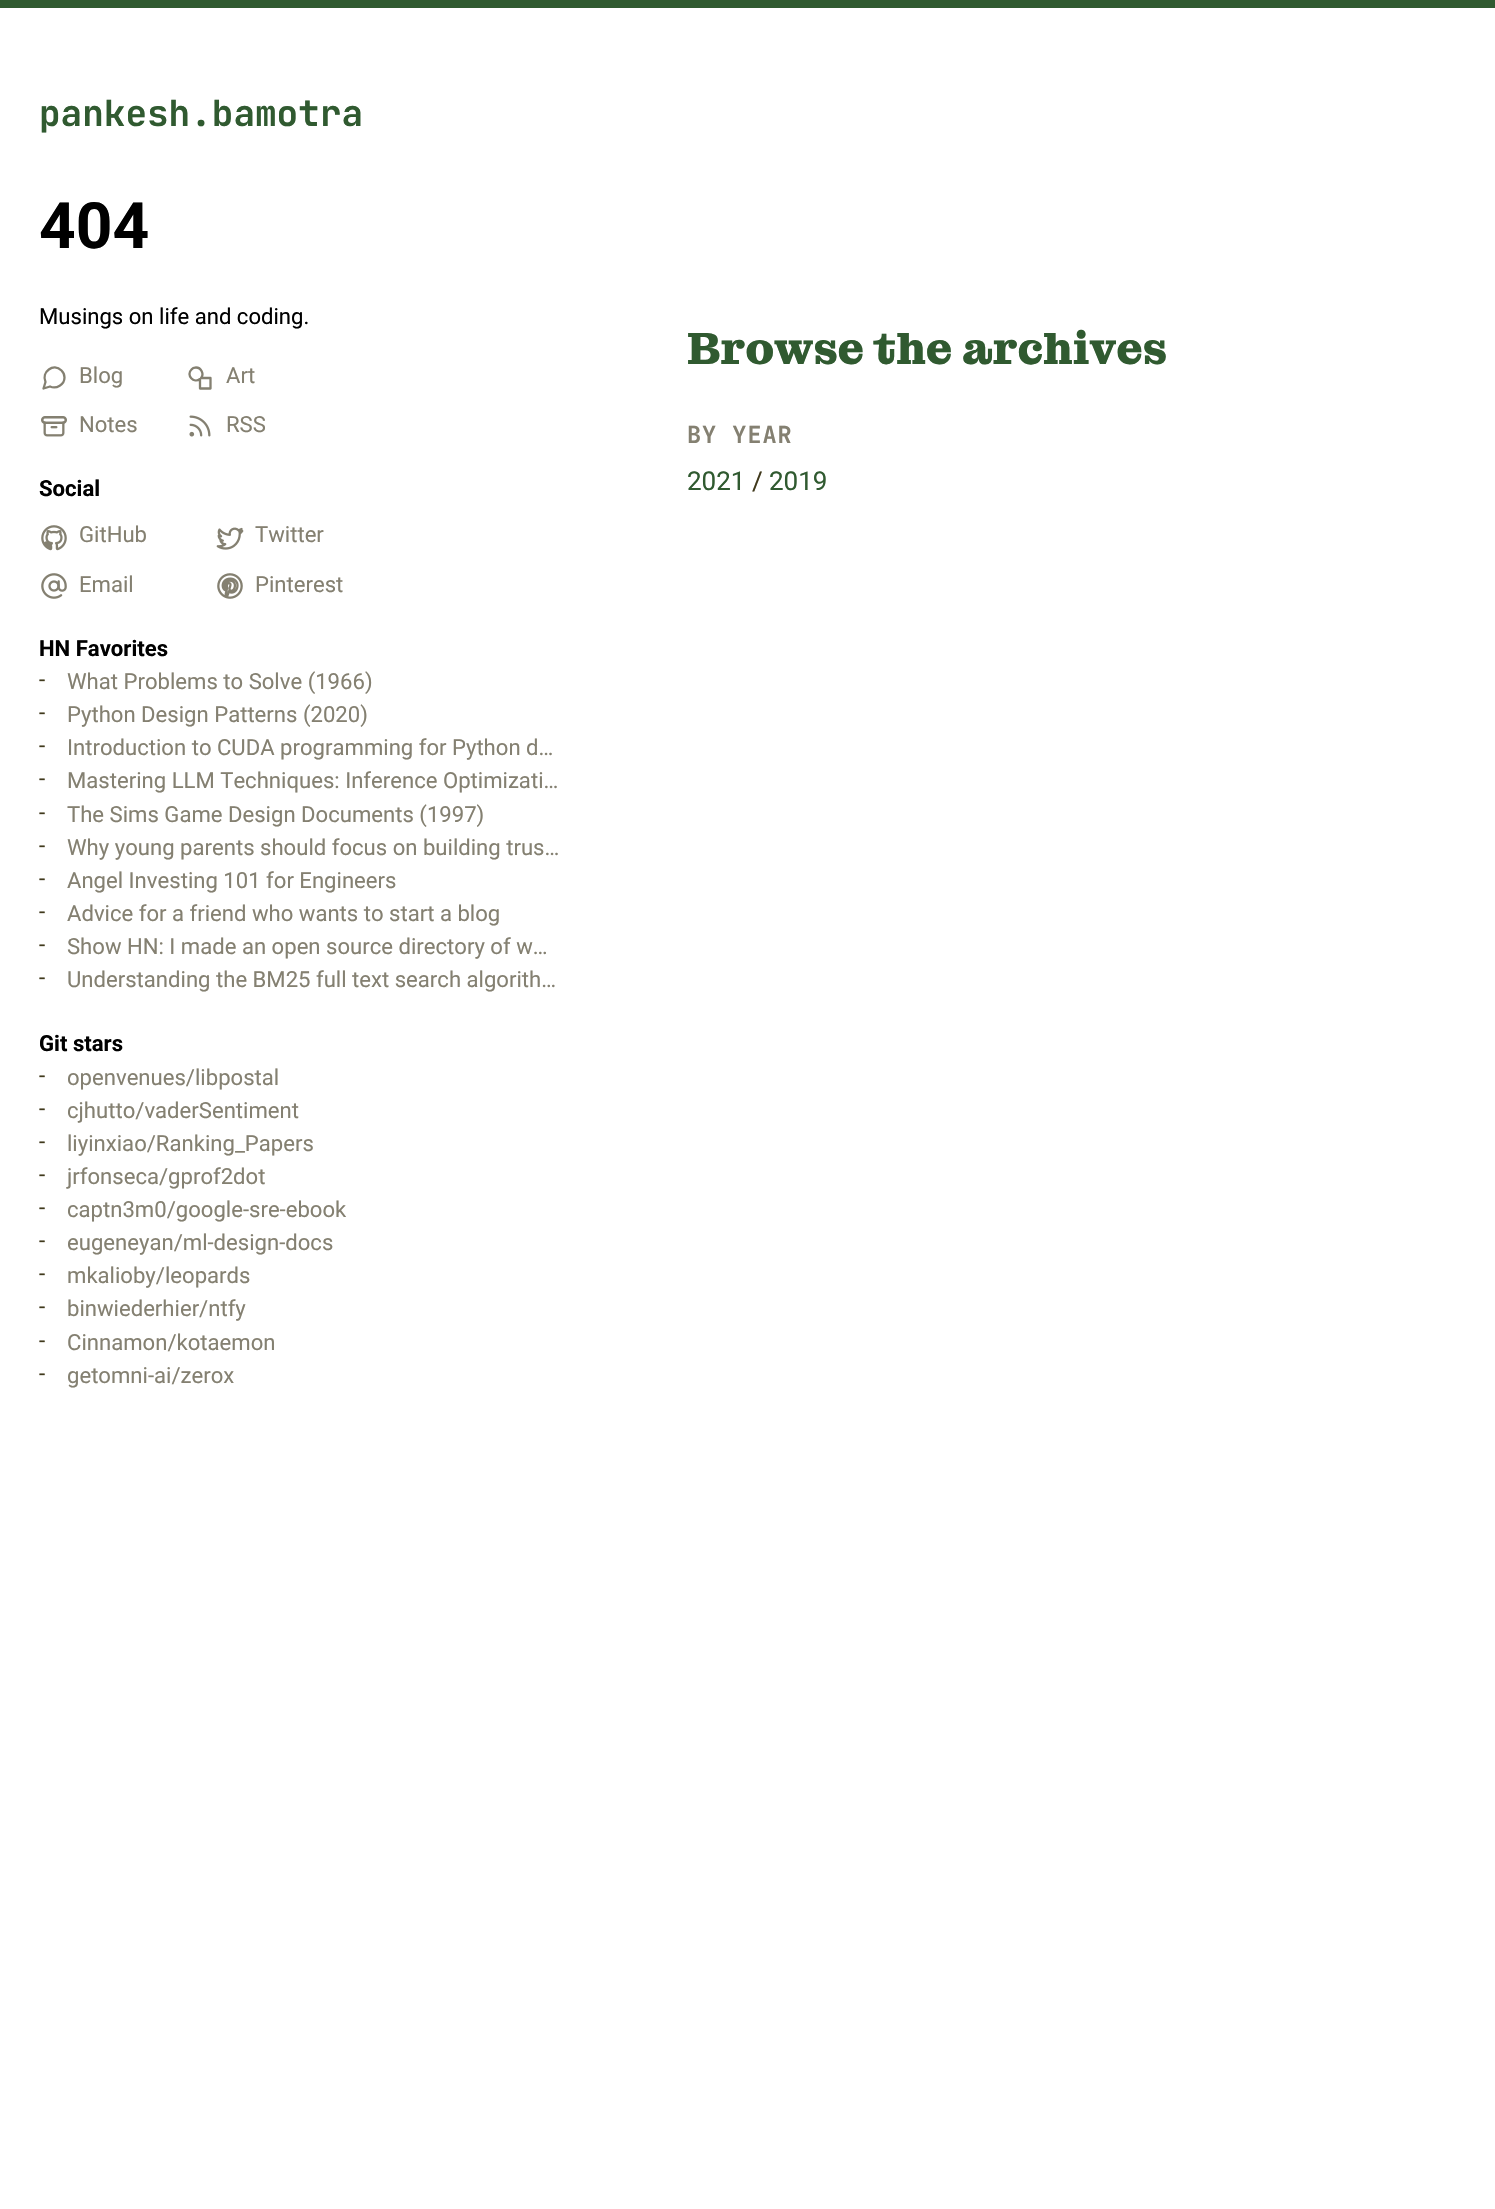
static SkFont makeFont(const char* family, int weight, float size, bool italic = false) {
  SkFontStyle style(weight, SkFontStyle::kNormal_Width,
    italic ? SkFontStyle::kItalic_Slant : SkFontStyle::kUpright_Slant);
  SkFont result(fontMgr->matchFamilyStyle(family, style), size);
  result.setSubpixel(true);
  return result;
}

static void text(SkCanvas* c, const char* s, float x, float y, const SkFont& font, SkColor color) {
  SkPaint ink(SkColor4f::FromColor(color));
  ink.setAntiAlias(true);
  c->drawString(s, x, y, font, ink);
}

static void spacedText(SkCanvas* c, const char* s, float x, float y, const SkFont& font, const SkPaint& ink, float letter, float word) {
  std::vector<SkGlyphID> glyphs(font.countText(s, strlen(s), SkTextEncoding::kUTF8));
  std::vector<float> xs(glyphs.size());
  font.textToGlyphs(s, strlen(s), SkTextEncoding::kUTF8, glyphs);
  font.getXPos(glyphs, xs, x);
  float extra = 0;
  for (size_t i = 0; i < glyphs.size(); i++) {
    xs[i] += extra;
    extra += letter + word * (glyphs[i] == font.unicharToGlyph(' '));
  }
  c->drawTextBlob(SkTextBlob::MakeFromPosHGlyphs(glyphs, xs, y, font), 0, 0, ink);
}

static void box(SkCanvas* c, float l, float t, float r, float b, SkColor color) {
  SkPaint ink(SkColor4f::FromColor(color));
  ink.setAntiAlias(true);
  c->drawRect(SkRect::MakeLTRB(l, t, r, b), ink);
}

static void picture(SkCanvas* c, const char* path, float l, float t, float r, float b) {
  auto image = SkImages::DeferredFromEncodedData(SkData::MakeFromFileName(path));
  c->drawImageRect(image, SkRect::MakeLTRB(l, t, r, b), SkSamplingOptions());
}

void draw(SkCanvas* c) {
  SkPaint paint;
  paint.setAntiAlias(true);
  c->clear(0xffffffff);
  box(c, 0, 0, 1495, 8, 0xff305a30);
  SkFont face1 = makeFont("JetBrains Mono", 700, 36);
  text(c, "pankesh.bamotra", 39, 126, face1, 0xff305a30);
  SkFont face2 = makeFont("Roboto", 700, 64);
  text(c, "404", 39, 248, face2, 0xff000000);
  SkFont face3 = makeFont("Roboto", 400, 22.1f);
  text(c, "Musings on life and coding.", 39, 324, face3, 0xff000000);
  paint.setStyle(SkPaint::kStroke_Style);
  paint.setStrokeWidth(2.3f);
  paint.setStrokeCap(SkPaint::kRound_Cap);
  paint.setStrokeJoin(SkPaint::kRound_Join);
  paint.setColor(0xff848071);
  c->drawPath(SkPathBuilder().moveTo(64.5f, 377.5f).cubicTo(64.5f, 384.5f, 56.5f, 389.5f, 50, 386.5f).lineTo(43.5f, 388.5f).lineTo(45.5f, 382).cubicTo(41, 372, 53.5f, 362.5f, 61.5f, 370.5f).cubicTo(63.5f, 372.5f, 64.5f, 375, 64.5f, 377.5f).close().detach(), paint);
  text(c, "Blog", 79, 383, face3, 0xff848071);
  c->drawPath(SkPathBuilder().moveTo(196, 367.5f).cubicTo(201, 367.5f, 204.5f, 374, 201, 378).lineTo(210.5f, 378).lineTo(210.5f, 388.5f).lineTo(200, 388.5f).lineTo(200, 379).cubicTo(194, 384, 185.5f, 375, 191.5f, 369.5f).cubicTo(192.5f, 368, 194, 367.5f, 196, 367.5f).close().detach(), paint);
  text(c, "Art", 226, 383, face3, 0xff848071);
  picture(c, "img_01.png", 41, 416, 67, 437);
  text(c, "Notes", 79, 432, face3, 0xff848071);
  picture(c, "img_02.png", 189, 415, 211, 437);
  text(c, "RSS", 226, 432, face3, 0xff848071);
  SkFont face4 = makeFont("Roboto", 700, 22.1f);
  text(c, "Social", 39, 496, face4, 0xff000000);
  picture(c, "img_03.png", 41, 525, 67, 551);
  text(c, "GitHub", 79, 542, face3, 0xff848071);
  picture(c, "img_04.png", 216, 527, 244, 550);
  text(c, "Twitter", 255, 542, face3, 0xff848071);
  picture(c, "img_05.png", 41, 573, 67, 599);
  text(c, "Email", 79, 592, face3, 0xff848071);
  picture(c, "img_06.png", 217, 573, 243, 599);
  text(c, "Pinterest", 255, 592, face3, 0xff848071);
  text(c, "HN Favorites", 39, 656, face4, 0xff000000);
  text(c, "-", 39, 687, face3, 0xff40391c);
  text(c, "What Problems to Solve (1966)", 67, 689, face3, 0xff848071);
  text(c, "-", 39, 720, face3, 0xff40391c);
  text(c, "Python Design Patterns (2020)", 67, 722, face3, 0xff848071);
  text(c, "-", 39, 753, face3, 0xff40391c);
  text(c, "Introduction to CUDA programming for Python d…", 67, 755, face3, 0xff848071);
  text(c, "-", 39, 786, face3, 0xff40391c);
  text(c, "Mastering LLM Techniques: Inference Optimizati…", 67, 788, face3, 0xff848071);
  text(c, "-", 39, 820, face3, 0xff40391c);
  text(c, "The Sims Game Design Documents (1997)", 67, 822, face3, 0xff848071);
  text(c, "-", 39, 853, face3, 0xff40391c);
  text(c, "Why young parents should focus on building trus…", 67, 855, face3, 0xff848071);
  text(c, "-", 39, 886, face3, 0xff40391c);
  text(c, "Angel Investing 101 for Engineers", 67, 888, face3, 0xff848071);
  text(c, "-", 39, 919, face3, 0xff40391c);
  text(c, "Advice for a friend who wants to start a blog", 67, 921, face3, 0xff848071);
  text(c, "-", 39, 952, face3, 0xff40391c);
  text(c, "Show HN: I made an open source directory of w…", 67, 954, face3, 0xff848071);
  text(c, "-", 39, 985, face3, 0xff40391c);
  text(c, "Understanding the BM25 full text search algorith…", 67, 987, face3, 0xff848071);
  text(c, "Git stars", 39, 1051, face4, 0xff000000);
  text(c, "-", 39, 1083, face3, 0xff40391c);
  text(c, "openvenues/libpostal", 67, 1085, face3, 0xff848071);
  text(c, "-", 39, 1116, face3, 0xff40391c);
  text(c, "cjhutto/vaderSentiment", 67, 1118, face3, 0xff848071);
  text(c, "-", 39, 1149, face3, 0xff40391c);
  text(c, "liyinxiao/Ranking_Papers", 67, 1151, face3, 0xff848071);
  text(c, "-", 39, 1182, face3, 0xff40391c);
  text(c, "jrfonseca/gprof2dot", 67, 1184, face3, 0xff848071);
  text(c, "-", 39, 1215, face3, 0xff40391c);
  text(c, "captn3m0/google-sre-ebook", 67, 1217, face3, 0xff848071);
  text(c, "-", 39, 1248, face3, 0xff40391c);
  text(c, "eugeneyan/ml-design-docs", 67, 1250, face3, 0xff848071);
  text(c, "-", 39, 1281, face3, 0xff40391c);
  text(c, "mkalioby/leopards", 67, 1283, face3, 0xff848071);
  text(c, "-", 39, 1314, face3, 0xff40391c);
  text(c, "binwiederhier/ntfy", 67, 1316, face3, 0xff848071);
  text(c, "-", 39, 1348, face3, 0xff40391c);
  text(c, "Cinnamon/kotaemon", 67, 1350, face3, 0xff848071);
  text(c, "-", 39, 1381, face3, 0xff40391c);
  text(c, "getomni-ai/zerox", 67, 1383, face3, 0xff848071);
  SkFont face5 = makeFont("Montagu Slab", 700, 45.5f);
  text(c, "Browse the archives", 687, 364, face5, 0xff305a30);
  SkFont face6 = makeFont("JetBrains Mono", 700, 23.5f);
  paint.setStyle(SkPaint::kFill_Style);
  spacedText(c, "BY YEAR", 687, 443, face6, paint, 1, 0);
  SkFont face7 = makeFont("Roboto", 400, 26);
  text(c, "2021", 687, 490, face7, 0xff305a30);
  text(c, "/", 752, 490, face7, 0xff40391c);
  text(c, "2019", 769, 490, face7, 0xff305a30);
}
